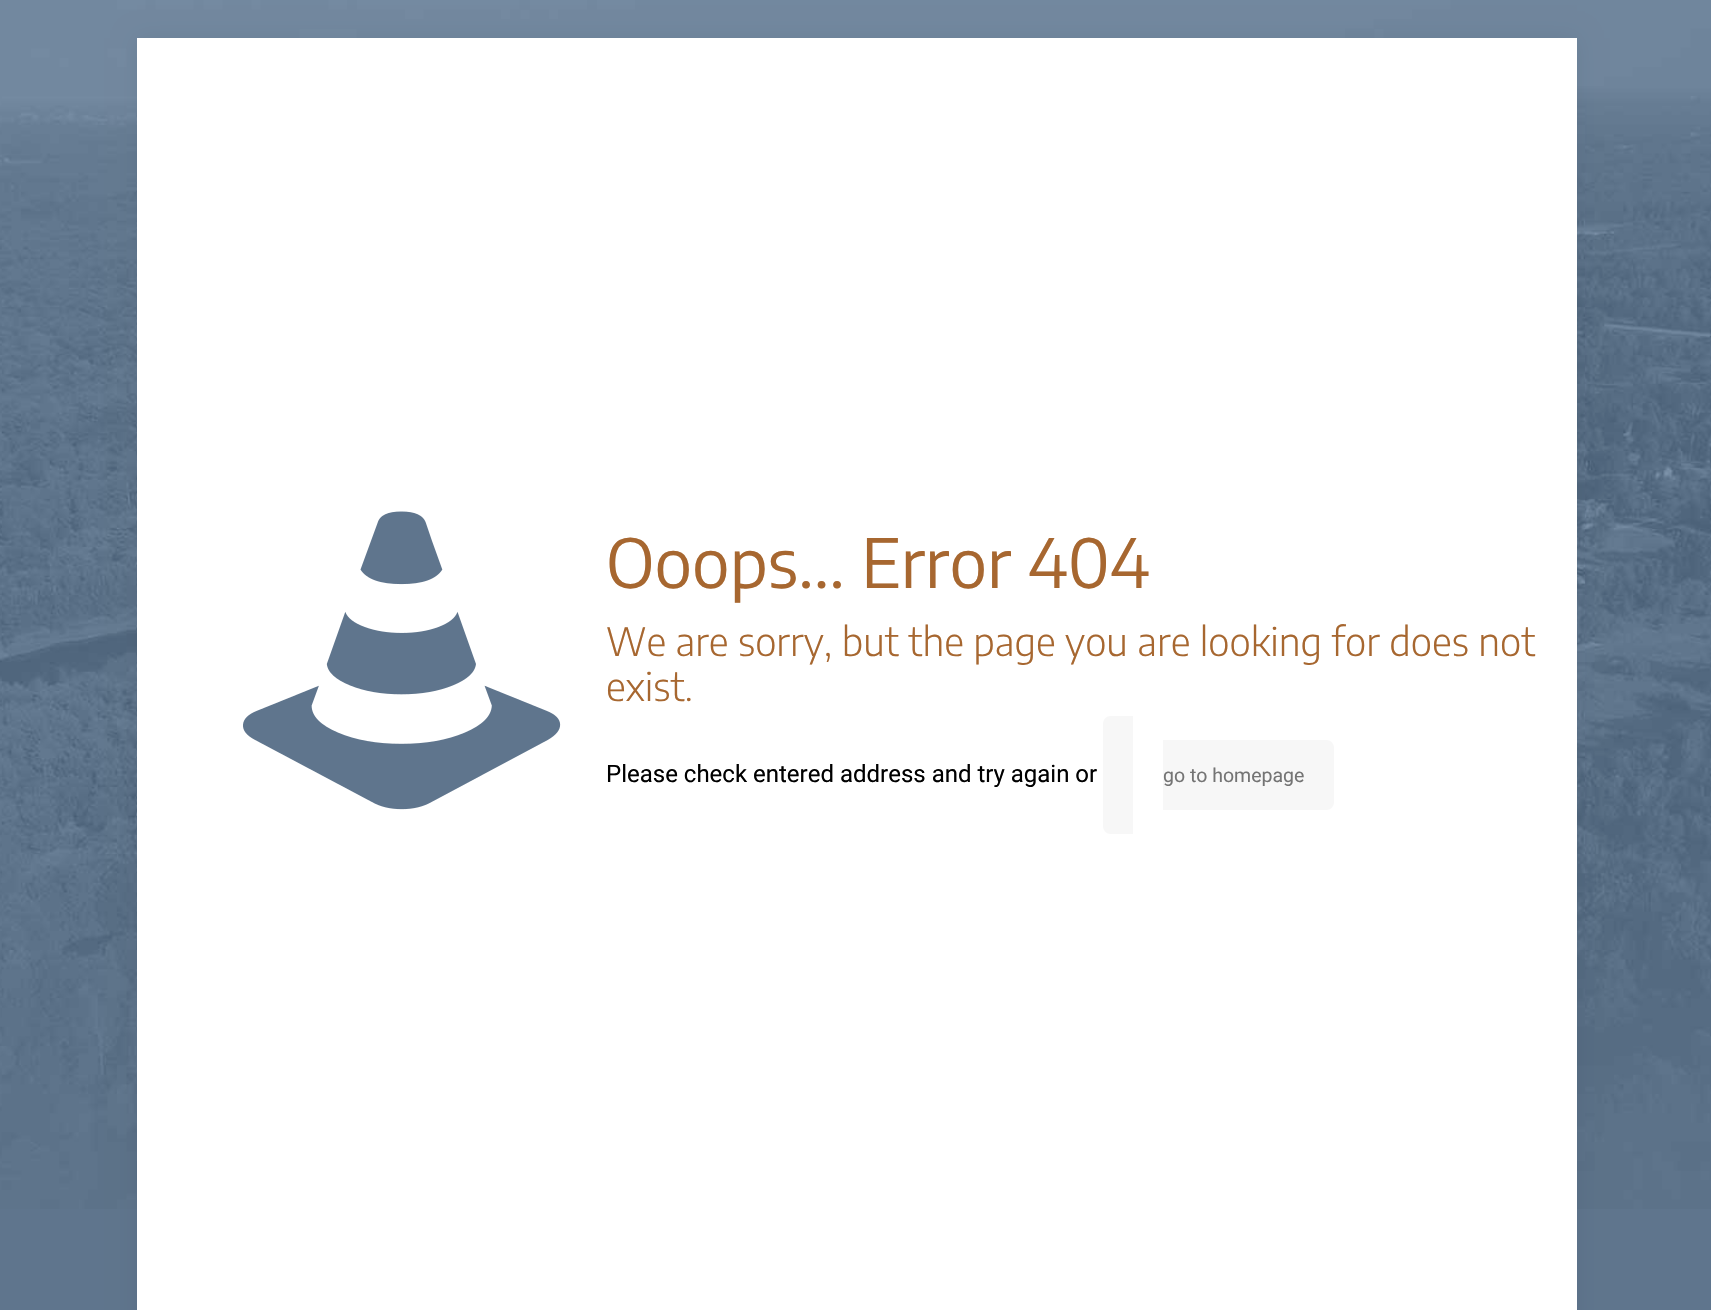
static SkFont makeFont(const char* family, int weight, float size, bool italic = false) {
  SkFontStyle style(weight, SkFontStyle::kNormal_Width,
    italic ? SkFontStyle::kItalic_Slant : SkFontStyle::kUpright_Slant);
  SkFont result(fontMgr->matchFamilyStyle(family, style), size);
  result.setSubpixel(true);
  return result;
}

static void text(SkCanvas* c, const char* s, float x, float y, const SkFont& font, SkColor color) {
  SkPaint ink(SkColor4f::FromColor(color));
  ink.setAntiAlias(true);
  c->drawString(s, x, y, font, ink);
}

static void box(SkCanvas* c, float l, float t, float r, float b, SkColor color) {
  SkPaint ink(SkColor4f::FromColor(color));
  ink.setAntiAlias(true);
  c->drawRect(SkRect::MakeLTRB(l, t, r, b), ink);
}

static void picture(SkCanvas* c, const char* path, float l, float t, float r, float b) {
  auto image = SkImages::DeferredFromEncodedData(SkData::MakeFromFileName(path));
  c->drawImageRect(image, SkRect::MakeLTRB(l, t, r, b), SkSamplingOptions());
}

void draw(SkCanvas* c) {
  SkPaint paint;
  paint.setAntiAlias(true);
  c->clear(0xff5f758d);
  picture(c, "img_01.png", 0, 0, 1711, 1209);
  paint.setColor(0x0f000000);
  paint.setMaskFilter(SkMaskFilter::MakeBlur(kNormal_SkBlurStyle, 11));
  c->drawRect(SkRect::MakeLTRB(137, 38, 1577, 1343), paint);
  paint.setMaskFilter(nullptr);
  box(c, 137, 38, 1577, 1310, 0xffffffff);
  picture(c, "img_02.png", 243, 511, 561, 810);
  SkFont face1 = makeFont("Encode Sans Condensed", 400, 67.5f);
  text(c, "Ooops... Error 404", 606, 588, face1, 0xffa76730);
  SkFont face2 = makeFont("Encode Sans Condensed", 300, 39);
  text(c, "We are sorry, but the page you are looking for does not", 606, 656, face2, 0xffa76730);
  text(c, "exist.", 606, 701, face2, 0xffa76730);
  SkFont face3 = makeFont("Roboto", 400, 24);
  text(c, "Please check entered address and try again or", 606, 782, face3, 0xff000000);
  paint.setColor(0xfff7f7f7);
  c->drawPath(SkPathBuilder().moveTo(1163, 740).lineTo(1326, 740).cubicTo(1330.5f, 740, 1334, 743.5f, 1334, 748).lineTo(1334, 802).cubicTo(1334, 806.5f, 1330.5f, 810, 1326, 810).lineTo(1163, 810).close().detach(), paint);
  SkFont face4 = makeFont("Roboto", 400, 19.5f);
  text(c, "go to homepage", 1163, 782, face4, 0xff747474);
  c->drawPath(SkPathBuilder().moveTo(1111, 716).lineTo(1133, 716).lineTo(1133, 834).lineTo(1111, 834).cubicTo(1106.5f, 834, 1103, 830.5f, 1103, 826).lineTo(1103, 724).cubicTo(1103, 719.5f, 1106.5f, 716, 1111, 716).close().detach(), paint);
}
